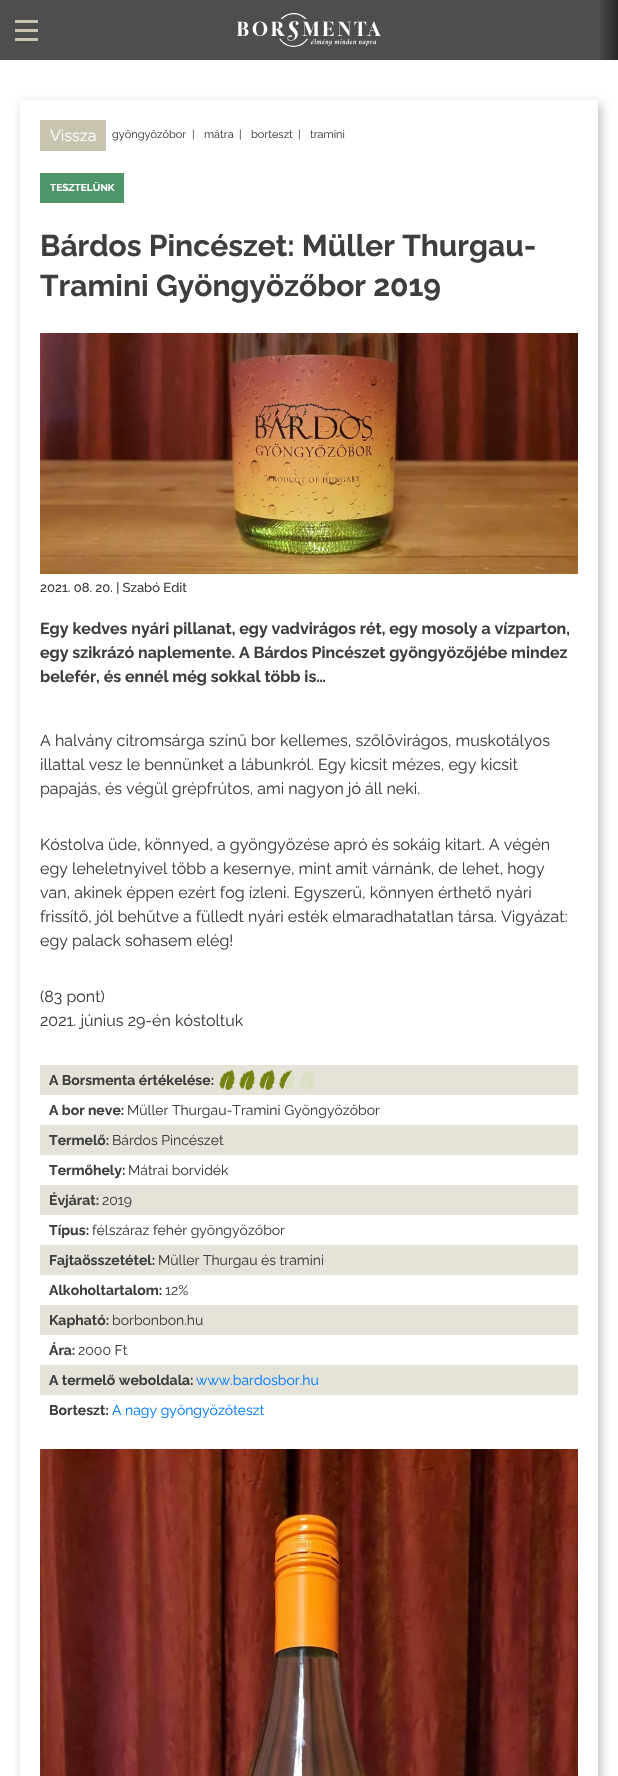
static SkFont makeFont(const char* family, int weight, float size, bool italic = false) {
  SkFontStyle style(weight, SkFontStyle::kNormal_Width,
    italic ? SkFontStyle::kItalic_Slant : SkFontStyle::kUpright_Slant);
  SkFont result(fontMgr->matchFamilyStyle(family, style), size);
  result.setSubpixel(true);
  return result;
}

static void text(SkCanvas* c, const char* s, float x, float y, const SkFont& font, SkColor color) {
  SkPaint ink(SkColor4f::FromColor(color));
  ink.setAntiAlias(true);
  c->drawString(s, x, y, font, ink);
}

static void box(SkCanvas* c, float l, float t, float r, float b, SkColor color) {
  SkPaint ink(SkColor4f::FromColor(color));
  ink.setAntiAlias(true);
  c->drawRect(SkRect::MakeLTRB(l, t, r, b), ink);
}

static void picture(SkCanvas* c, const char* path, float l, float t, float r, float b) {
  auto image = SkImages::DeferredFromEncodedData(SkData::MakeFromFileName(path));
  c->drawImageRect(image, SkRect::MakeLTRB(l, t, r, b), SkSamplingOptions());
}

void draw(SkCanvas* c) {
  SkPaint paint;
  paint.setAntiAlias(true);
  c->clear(0xffffffff);
  box(c, 0, 0, 598, 60, 0xff4e4e4e);
  picture(c, "img_01.png", 237, 13, 381, 47);
  {
    const SkColor colors[] = {0xff4e4e4e, 0xff272727};
    const float stops[] = {0, 1};
    const SkPoint ends[] = {{598, 0}, {618, 0}};
    paint.setShader(SkGradientShader::MakeLinear(ends, colors, stops, 2, SkTileMode::kClamp));
    paint.setAlpha(255);
  }
  c->drawRect(SkRect::MakeLTRB(598, 0, 618, 60), paint);
  box(c, 15, 20, 38, 23, 0xffc8c4af);
  box(c, 15, 29, 38, 32, 0xffc8c4af);
  box(c, 15, 38, 38, 41, 0xffc8c4af);
  c->save();
  c->clipPath(SkPathBuilder(SkPathFillType::kEvenOdd).moveTo(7, 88).lineTo(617, 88).lineTo(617, 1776).lineTo(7, 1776).close().moveTo(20, 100).lineTo(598, 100).lineTo(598, 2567).lineTo(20, 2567).close().detach(), true);
  paint.setShader(nullptr);
  paint.setColor(0x40000000);
  paint.setMaskFilter(SkMaskFilter::MakeBlur(kNormal_SkBlurStyle, 5));
  c->drawRect(SkRect::MakeLTRB(23, 104, 601, 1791), paint);
  paint.setMaskFilter(nullptr);
  c->restore();
  box(c, 40, 120, 106, 151, 0xffc8c4af);
  SkFont face1 = makeFont("Raleway", 400, 16);
  text(c, "Vissza", 50, 141, face1, 0xffffffff);
  SkFont face2 = makeFont("Raleway", 400, 11);
  text(c, "gyöngyözőbor", 112, 138, face2, 0xff3e3e3e);
  text(c, "|", 192, 138, face2, 0xff3e3e3e);
  text(c, "mátra", 204, 138, face2, 0xff3e3e3e);
  text(c, "|", 239, 138, face2, 0xff3e3e3e);
  text(c, "borteszt", 251, 138, face2, 0xff3e3e3e);
  text(c, "|", 298, 138, face2, 0xff3e3e3e);
  text(c, "tramini", 310, 138, face2, 0xff3e3e3e);
  box(c, 40, 173, 124, 203, 0xff4f976a);
  SkFont face3 = makeFont("Raleway", 700, 10);
  text(c, "TESZTELÜNK", 50, 191, face3, 0xffffffff);
  SkFont face4 = makeFont("Raleway", 700, 30);
  text(c, "Bárdos Pincészet: Müller Thurgau-", 40, 256, face4, 0xff3e3e3e);
  text(c, "Tramini Gyöngyözőbor 2019", 40, 296, face4, 0xff3e3e3e);
  picture(c, "img_02.png", 40, 333, 578, 574);
  SkFont face5 = makeFont("Raleway", 500, 13);
  text(c, "2021. 08. 20. | Szabó Edit", 40, 592, face5, 0xff3e3e3e);
  SkFont face6 = makeFont("Raleway", 700, 16);
  text(c, "Egy kedves nyári pillanat, egy vadvirágos rét, egy mosoly a vízparton,", 40, 634, face6, 0xff3e3e3e);
  text(c, "egy szikrázó naplemente. A Bárdos Pincészet gyöngyözőjébe mindez", 40, 658, face6, 0xff3e3e3e);
  text(c, "belefér, és ennél még sokkal több is…", 40, 682, face6, 0xff3e3e3e);
  text(c, "A halvány citromsárga színű bor kellemes, szőlővirágos, muskotályos", 40, 746, face1, 0xff3e3e3e);
  text(c, "illattal vesz le bennünket a lábunkról. Egy kicsit mézes, egy kicsit", 40, 770, face1, 0xff3e3e3e);
  text(c, "papajás, és végül grépfrútos, ami nagyon jó áll neki.", 40, 794, face1, 0xff3e3e3e);
  text(c, "Kóstolva üde, könnyed, a gyöngyözése apró és sokáig kitart. A végén", 40, 850, face1, 0xff3e3e3e);
  text(c, "egy leheletnyivel több a kesernye, mint amit várnánk, de lehet, hogy", 40, 874, face1, 0xff3e3e3e);
  text(c, "van, akinek éppen ezért fog ízleni. Egyszerű, könnyen érthető nyári", 40, 898, face1, 0xff3e3e3e);
  text(c, "frissítő, jól behűtve a fülledt nyári esték elmaradhatatlan társa. Vigyázat:", 40, 922, face1, 0xff3e3e3e);
  text(c, "egy palack sohasem elég!", 40, 946, face1, 0xff3e3e3e);
  text(c, "(83 pont)", 40, 1002, face1, 0xff3e3e3e);
  text(c, "2021. június 29-én kóstoltuk", 40, 1026, face1, 0xff3e3e3e);
  box(c, 40, 1065, 578, 1095, 0xffe5e3d8);
  SkFont face7 = makeFont("Raleway", 700, 14);
  text(c, "A Borsmenta értékelése:", 49, 1085, face7, 0xff3e3e3e);
  picture(c, "img_03.png", 219, 1070, 235, 1090);
  picture(c, "img_03.png", 239, 1070, 255, 1090);
  picture(c, "img_03.png", 259, 1070, 275, 1090);
  picture(c, "img_03.png", 279, 1070, 295, 1090);
  picture(c, "img_03.png", 299, 1070, 315, 1090);
  picture(c, "img_04.png", 219, 1070, 235, 1090);
  picture(c, "img_04.png", 239, 1070, 255, 1090);
  picture(c, "img_04.png", 259, 1070, 275, 1090);
  picture(c, "img_05.png", 279, 1070, 293, 1089);
  text(c, "A bor neve:", 49, 1115, face7, 0xff3e3e3e);
  SkFont face8 = makeFont("Raleway", 400, 14);
  text(c, "Müller Thurgau-Tramini Gyöngyözőbor", 127, 1115, face8, 0xff3e3e3e);
  box(c, 40, 1125, 578, 1155, 0xffe5e3d8);
  text(c, "Termelő:", 49, 1145, face7, 0xff3e3e3e);
  text(c, "Bárdos Pincészet", 112, 1145, face8, 0xff3e3e3e);
  text(c, "Termőhely:", 49, 1175, face7, 0xff3e3e3e);
  text(c, "Mátrai borvidék", 128, 1175, face8, 0xff3e3e3e);
  box(c, 40, 1185, 578, 1215, 0xffe5e3d8);
  text(c, "Évjárat:", 49, 1205, face7, 0xff3e3e3e);
  text(c, "2019", 102, 1205, face8, 0xff3e3e3e);
  text(c, "Típus:", 49, 1235, face7, 0xff3e3e3e);
  text(c, "félszáraz fehér gyöngyözőbor", 92, 1235, face8, 0xff3e3e3e);
  box(c, 40, 1245, 578, 1275, 0xffe5e3d8);
  text(c, "Fajtaösszetétel:", 49, 1265, face7, 0xff3e3e3e);
  text(c, "Müller Thurgau és tramini", 158, 1265, face8, 0xff3e3e3e);
  text(c, "Alkoholtartalom:", 49, 1295, face7, 0xff3e3e3e);
  text(c, "12%", 165, 1295, face8, 0xff3e3e3e);
  box(c, 40, 1305, 578, 1335, 0xffe5e3d8);
  text(c, "Kapható:", 49, 1325, face7, 0xff3e3e3e);
  text(c, "borbonbon.hu", 112, 1325, face8, 0xff3e3e3e);
  text(c, "Ára:", 49, 1355, face7, 0xff3e3e3e);
  text(c, "2000 Ft", 78, 1355, face8, 0xff3e3e3e);
  box(c, 40, 1365, 578, 1395, 0xffe5e3d8);
  text(c, "A termelő weboldala:", 49, 1385, face7, 0xff3e3e3e);
  text(c, "www.bardosbor.hu", 196, 1385, face8, 0xff007bff);
  text(c, "Borteszt:", 49, 1415, face7, 0xff3e3e3e);
  text(c, "A nagy gyöngyözőteszt", 112, 1415, face8, 0xff007bff);
  picture(c, "img_06.png", 40, 1449, 578, 1776);
}
